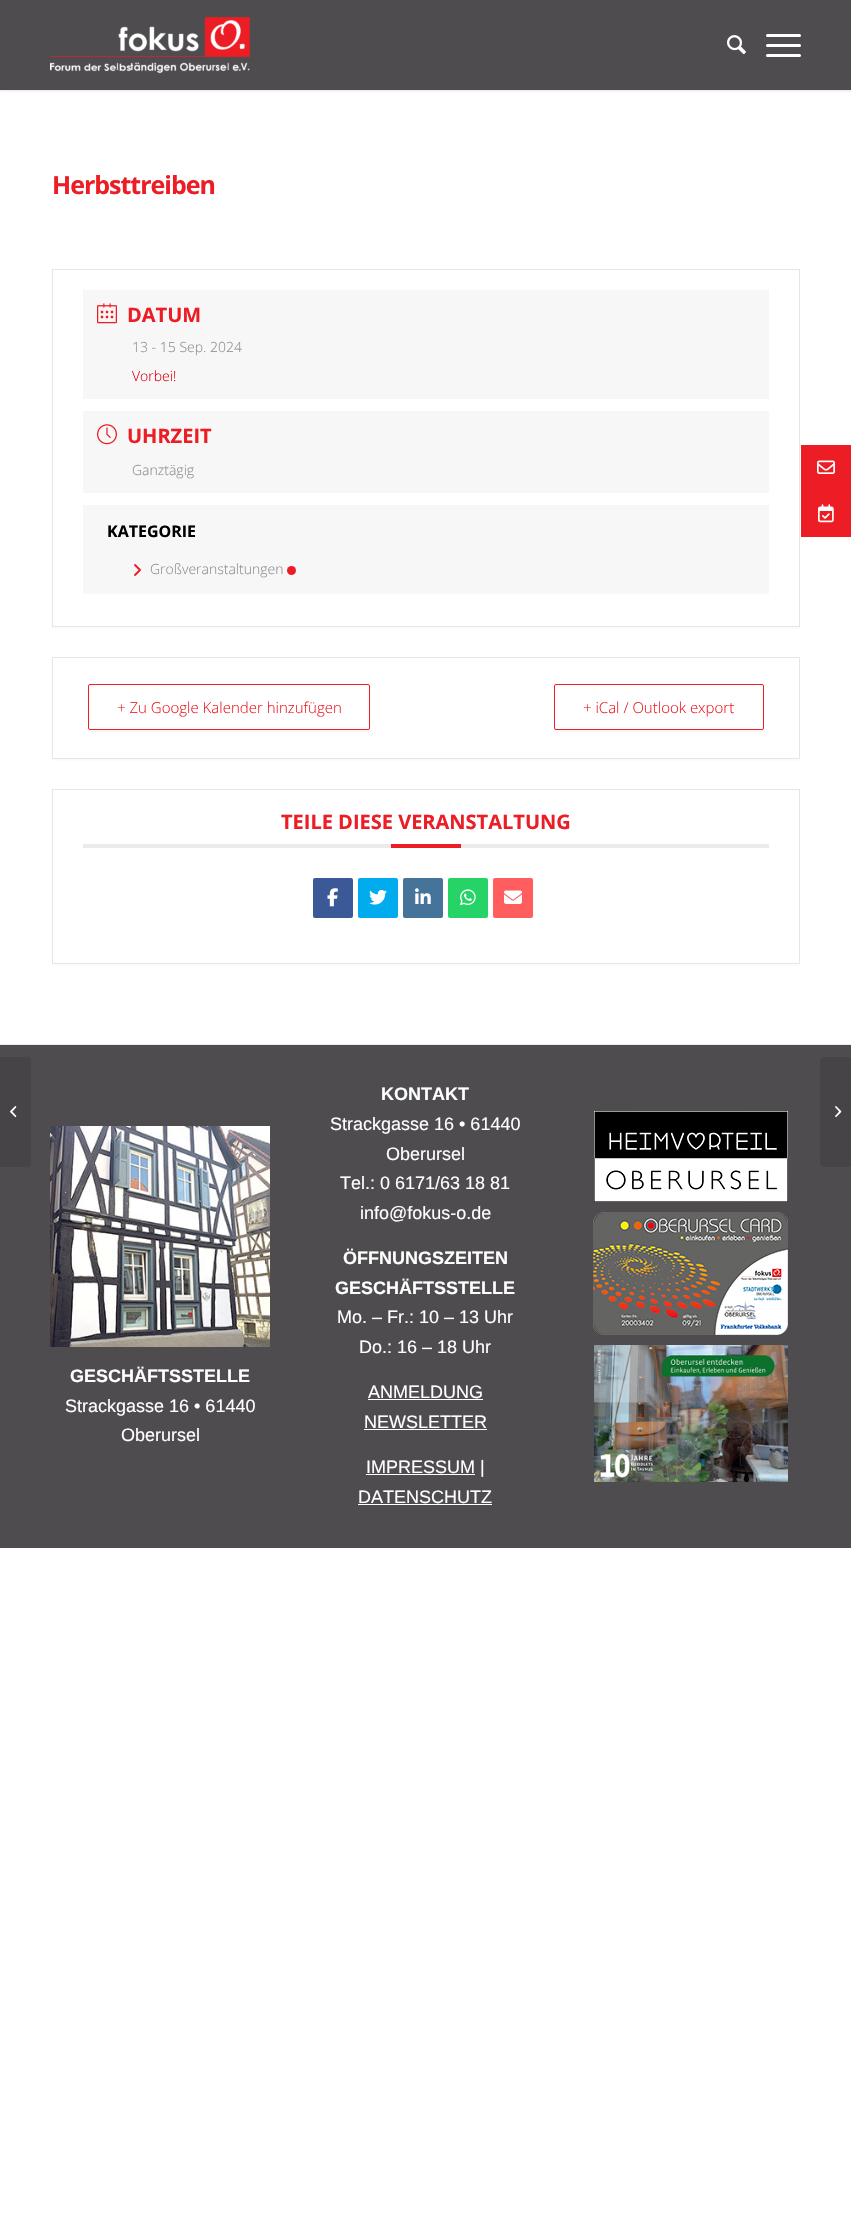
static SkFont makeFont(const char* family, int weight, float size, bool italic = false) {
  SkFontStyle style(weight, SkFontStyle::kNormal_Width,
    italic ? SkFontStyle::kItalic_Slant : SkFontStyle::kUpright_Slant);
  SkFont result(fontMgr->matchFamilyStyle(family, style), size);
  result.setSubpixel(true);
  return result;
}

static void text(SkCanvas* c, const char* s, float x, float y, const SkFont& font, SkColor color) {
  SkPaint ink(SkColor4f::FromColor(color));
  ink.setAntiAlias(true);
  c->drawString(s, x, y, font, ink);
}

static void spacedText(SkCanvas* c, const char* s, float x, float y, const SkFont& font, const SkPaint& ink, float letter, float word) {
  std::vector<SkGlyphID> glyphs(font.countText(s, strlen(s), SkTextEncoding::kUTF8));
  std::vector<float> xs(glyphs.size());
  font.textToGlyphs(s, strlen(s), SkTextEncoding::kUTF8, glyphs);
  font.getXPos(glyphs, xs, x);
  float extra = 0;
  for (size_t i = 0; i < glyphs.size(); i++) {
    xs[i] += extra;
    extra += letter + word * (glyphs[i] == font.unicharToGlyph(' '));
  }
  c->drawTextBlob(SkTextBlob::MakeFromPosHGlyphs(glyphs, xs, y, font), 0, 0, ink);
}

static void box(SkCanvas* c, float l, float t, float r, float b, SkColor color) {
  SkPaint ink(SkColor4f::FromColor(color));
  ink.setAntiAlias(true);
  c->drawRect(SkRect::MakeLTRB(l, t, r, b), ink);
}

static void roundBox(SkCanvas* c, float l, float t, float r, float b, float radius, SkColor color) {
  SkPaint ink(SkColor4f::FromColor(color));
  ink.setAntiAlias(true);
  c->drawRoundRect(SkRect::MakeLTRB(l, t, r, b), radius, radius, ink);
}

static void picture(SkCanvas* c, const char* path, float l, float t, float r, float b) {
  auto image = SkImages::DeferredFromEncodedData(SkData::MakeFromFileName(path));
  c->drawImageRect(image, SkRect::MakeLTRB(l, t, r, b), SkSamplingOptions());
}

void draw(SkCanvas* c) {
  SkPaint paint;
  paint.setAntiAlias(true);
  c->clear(0xffffffff);
  paint.setColor(0x1a000000);
  paint.setMaskFilter(SkMaskFilter::MakeBlur(kNormal_SkBlurStyle, 1));
  c->drawRect(SkRect::MakeLTRB(-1, -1, 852, 91), paint);
  paint.setMaskFilter(nullptr);
  box(c, 0, 0, 851, 90, 0xff4e4c4f);
  picture(c, "img_01.png", 50, 16, 250, 74);
  picture(c, "img_02.png", 727, 35, 746, 55);
  roundBox(c, 766, 44, 801, 47, 1.5f, 0xffffffff);
  roundBox(c, 766, 34, 801, 37, 1.5f, 0xffffffff);
  roundBox(c, 766, 54, 801, 57, 1.5f, 0xffffffff);
  box(c, 0, 1045, 851, 1548, 0xff4e4c4f);
  paint.setColor(0xff464447);
  c->drawPath(SkPathBuilder().moveTo(0, 1057).lineTo(27, 1057).cubicTo(29, 1057, 31, 1059, 31, 1061).lineTo(31, 1163).cubicTo(31, 1165, 29, 1167, 27, 1167).lineTo(0, 1167).close().detach(), paint);
  picture(c, "img_03.png", 10, 1106, 17, 1118);
  SkFont face1 = makeFont("Open Sans", 700, 25);
  paint.setColor(0xffec1d24);
  spacedText(c, "Herbsttreiben", 52, 194, face1, paint, -1, 0);
  box(c, 52, 627, 800, 629, 0xfffbfbfb);
  paint.setStyle(SkPaint::kStroke_Style);
  paint.setStrokeWidth(1);
  paint.setColor(0xffe6e6e6);
  c->drawRect(SkRect::MakeLTRB(52.5f, 269.5f, 799.5f, 626.5f), paint);
  box(c, 83, 290, 769, 399, 0xfff7f7f7);
  picture(c, "img_04.png", 97, 303, 117, 324);
  SkFont face2 = makeFont("Open Sans", 700, 20);
  text(c, "DATUM", 127, 322, face2, 0xffec1d24);
  SkFont face3 = makeFont("Open Sans", 300, 14);
  text(c, "13 - 15 Sep. 2024", 132, 352, face3, 0xff8d8d8d);
  text(c, "Vorbei!", 132, 381, face3, 0xffd8000c);
  box(c, 83, 411, 769, 493, 0xfff7f7f7);
  picture(c, "img_05.png", 97, 424, 117, 445);
  text(c, "UHRZEIT", 127, 443, face2, 0xffec1d24);
  text(c, "Ganztägig", 132, 475, face3, 0xff8d8d8d);
  box(c, 83, 505, 769, 594, 0xfff7f7f7);
  SkFont face4 = makeFont("Open Sans", 700, 16);
  text(c, "KATEGORIE", 107, 537, face4, 0xff000000);
  picture(c, "img_06.png", 134, 564, 141, 576);
  text(c, "Großveranstaltungen", 150, 574, face3, 0xff8d8d8d);
  paint.setStyle(SkPaint::kFill_Style);
  paint.setColor(0xffec1d24);
  c->drawCircle(291.5f, 570.5f, 4.5f, paint);
  box(c, 52, 759, 800, 761, 0xfffbfbfb);
  paint.setStyle(SkPaint::kStroke_Style);
  paint.setColor(0xffe6e6e6);
  c->drawRect(SkRect::MakeLTRB(52.5f, 657.5f, 799.5f, 758.5f), paint);
  paint.setStyle(SkPaint::kFill_Style);
  paint.setColor(0xfff7f7f7);
  c->drawPath(SkPathBuilder().moveTo(88, 728).cubicTo(88, 730, 88, 732, 90, 732).lineTo(368, 732).cubicTo(370, 732, 370, 730, 370, 728).cubicTo(370, 729, 369, 730, 368, 730).lineTo(90, 730).cubicTo(89, 730, 88, 729, 88, 728).close().detach(), paint);
  paint.setStyle(SkPaint::kStroke_Style);
  paint.setColor(0xffec1d24);
  c->drawRoundRect(SkRect::MakeLTRB(88.5f, 684.5f, 369.5f, 729.5f), 1.5f, 1.5f, paint);
  SkFont face5 = makeFont("Open Sans", 300, 15);
  text(c, "+ Zu Google Kalender hinzufügen", 117, 713, face5, 0xffec1d24);
  paint.setStyle(SkPaint::kFill_Style);
  paint.setColor(0xfff7f7f7);
  c->drawPath(SkPathBuilder().moveTo(554, 728).lineTo(554, 730).cubicTo(554, 731, 555, 732, 556, 732).lineTo(762, 732).cubicTo(763, 732, 764, 731, 764, 730).lineTo(764, 728).cubicTo(764, 729, 763, 730, 762, 730).lineTo(556, 730).cubicTo(555, 730, 554, 729, 554, 728).close().detach(), paint);
  paint.setStyle(SkPaint::kStroke_Style);
  paint.setColor(0xffec1d24);
  c->drawRoundRect(SkRect::MakeLTRB(554.5f, 684.5f, 763.5f, 729.5f), 1.5f, 1.5f, paint);
  text(c, "+ iCal / Outlook export", 583, 713, face5, 0xffec1d24);
  box(c, 52, 964, 800, 966, 0xfffbfbfb);
  paint.setColor(0xffe6e6e6);
  c->drawRect(SkRect::MakeLTRB(52.5f, 789.5f, 799.5f, 963.5f), paint);
  box(c, 83, 844, 769, 848, 0xffebebeb);
  text(c, "TEILE DIESE VERANSTALTUNG", 281, 829, face2, 0xffec1d24);
  box(c, 391, 844, 461, 848, 0xffec1d24);
  roundBox(c, 313, 878, 353, 918, 2, 0xff3b5996);
  picture(c, "img_07.png", 327, 888, 338, 907);
  roundBox(c, 358, 878, 398, 918, 2, 0xff00acee);
  picture(c, "img_08.png", 369, 890, 387, 905);
  roundBox(c, 403, 878, 443, 918, 2, 0xff457399);
  picture(c, "img_09.png", 415, 888, 431, 904);
  roundBox(c, 448, 878, 488, 918, 2, 0xff25d366);
  picture(c, "img_10.png", 460, 889, 476, 906);
  roundBox(c, 493, 878, 533, 918, 2, 0xffff5d5e);
  picture(c, "img_11.png", 504, 890, 522, 904);
  box(c, 0, 1044, 851, 1045, 0xffebebeb);
  picture(c, "img_12.png", 50, 1126, 270, 1347);
  SkFont face6 = makeFont("Liberation Sans", 700, 18);
  text(c, "GESCHÄFTSSTELLE", 70, 1382, face6, 0xffffffff);
  SkFont face7 = makeFont("Liberation Sans", 400, 18);
  text(c, "Strackgasse 16 • 61440", 65, 1412, face7, 0xffffffff);
  text(c, "Oberursel", 121, 1441, face7, 0xffffffff);
  text(c, "KONTAKT", 381, 1100, face6, 0xffffffff);
  text(c, "Strackgasse 16 • 61440", 330, 1130, face7, 0xffffffff);
  text(c, "Oberursel", 386, 1160, face7, 0xffffffff);
  text(c, "Tel.: 0 6171/63 18 81", 340, 1189, face7, 0xffffffff);
  text(c, "info@fokus-o.de", 360, 1219, face7, 0xffffffff);
  text(c, "ÖFFNUNGSZEITEN", 343, 1264, face6, 0xffffffff);
  text(c, "GESCHÄFTSSTELLE", 335, 1294, face6, 0xffffffff);
  text(c, "Mo. – Fr.: 10 – 13 Uhr", 337, 1323, face7, 0xffffffff);
  text(c, "Do.: 16 – 18 Uhr", 359, 1353, face7, 0xffffffff);
  text(c, "ANMELDUNG", 368, 1398, face7, 0xffffffff);
  box(c, 368, 1399, 483, 1400, 0xffffffff);
  text(c, "NEWSLETTER", 364, 1428, face7, 0xffffffff);
  box(c, 364, 1429, 487, 1430, 0xffffffff);
  box(c, 366, 1474, 475, 1475, 0xffffffff);
  text(c, "IMPRESSUM |", 366, 1473, face7, 0xffffffff);
  text(c, "DATENSCHUTZ", 358, 1503, face7, 0xffffffff);
  box(c, 358, 1504, 492, 1505, 0xffffffff);
  picture(c, "img_13.png", 594, 1111, 788, 1202);
  picture(c, "img_14.png", 593, 1212, 788, 1335);
  picture(c, "img_15.png", 594, 1345, 788, 1482);
  paint.setStyle(SkPaint::kFill_Style);
  paint.setColor(0xff464447);
  c->drawPath(SkPathBuilder().moveTo(824, 1057).lineTo(851, 1057).lineTo(851, 1167).lineTo(824, 1167).cubicTo(822, 1167, 820, 1165, 820, 1163).lineTo(820, 1061).cubicTo(820, 1059, 822, 1057, 824, 1057).close().detach(), paint);
  picture(c, "img_16.png", 835, 1106, 842, 1118);
  box(c, 801, 445, 851, 537, 0xffec1d24);
  picture(c, "img_17.png", 817, 460, 835, 474);
  picture(c, "img_18.png", 818, 504, 834, 523);
}
